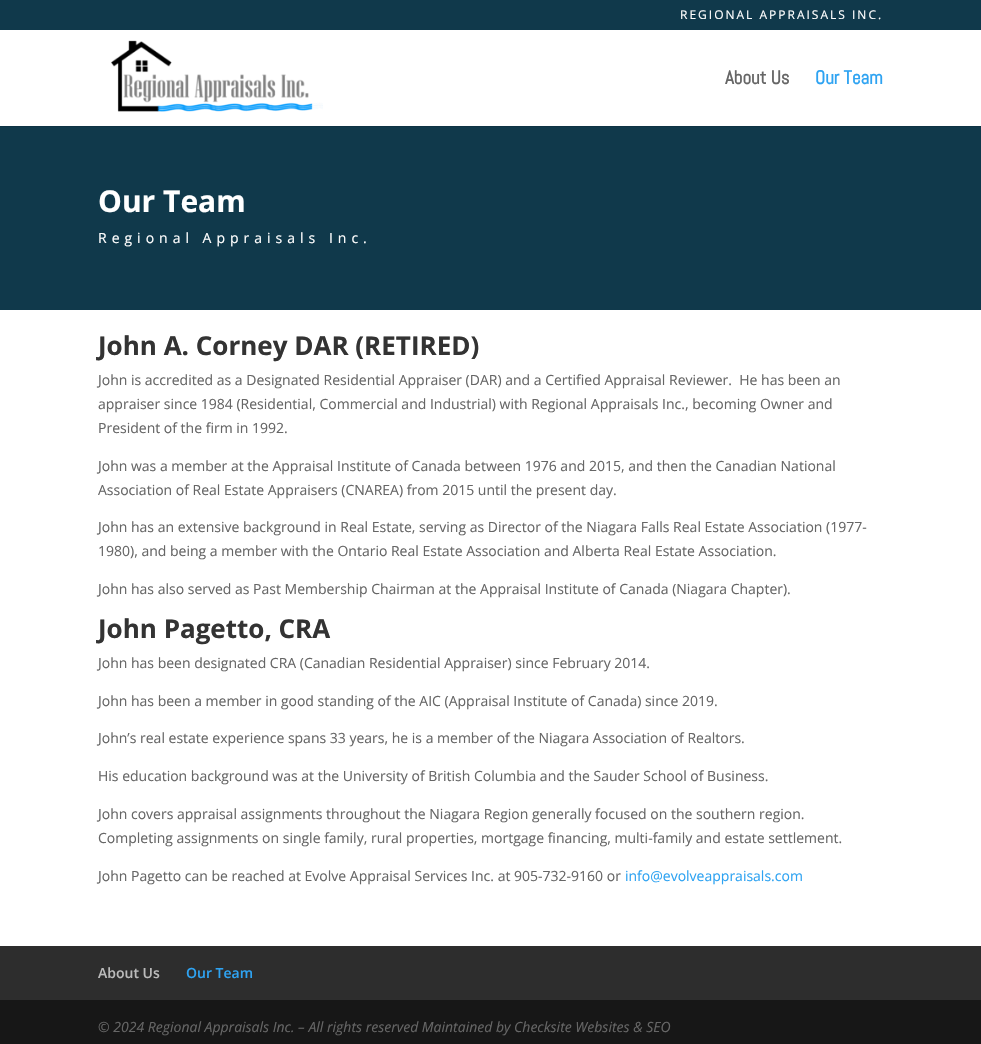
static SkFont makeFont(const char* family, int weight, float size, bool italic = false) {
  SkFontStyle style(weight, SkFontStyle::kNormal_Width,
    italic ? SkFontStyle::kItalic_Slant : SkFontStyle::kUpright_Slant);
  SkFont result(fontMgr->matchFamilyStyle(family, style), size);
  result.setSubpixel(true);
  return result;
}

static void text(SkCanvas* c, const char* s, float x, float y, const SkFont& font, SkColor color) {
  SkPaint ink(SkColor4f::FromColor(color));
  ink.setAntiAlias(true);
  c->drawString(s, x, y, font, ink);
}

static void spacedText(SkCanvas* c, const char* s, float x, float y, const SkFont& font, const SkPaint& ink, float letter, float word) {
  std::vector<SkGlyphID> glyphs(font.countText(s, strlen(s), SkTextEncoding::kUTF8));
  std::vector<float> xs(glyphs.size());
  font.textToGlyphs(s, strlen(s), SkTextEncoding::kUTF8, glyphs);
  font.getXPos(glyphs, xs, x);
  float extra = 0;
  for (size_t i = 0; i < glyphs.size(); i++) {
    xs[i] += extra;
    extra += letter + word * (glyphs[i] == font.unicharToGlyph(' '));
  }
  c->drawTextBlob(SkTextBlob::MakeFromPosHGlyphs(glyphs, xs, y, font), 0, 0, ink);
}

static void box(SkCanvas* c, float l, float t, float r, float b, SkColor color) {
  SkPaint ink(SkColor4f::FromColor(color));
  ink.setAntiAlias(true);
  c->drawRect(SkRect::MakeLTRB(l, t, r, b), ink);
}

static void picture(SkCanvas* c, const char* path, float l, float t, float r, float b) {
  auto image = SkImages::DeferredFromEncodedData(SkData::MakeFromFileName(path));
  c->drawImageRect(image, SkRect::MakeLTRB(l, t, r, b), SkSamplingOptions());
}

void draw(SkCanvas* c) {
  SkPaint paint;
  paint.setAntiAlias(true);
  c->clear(0xffffffff);
  box(c, 0, 0, 981, 30, 0xff10394b);
  SkFont face1 = makeFont("Open Sans", 400, 12);
  paint.setColor(0xffffffff);
  spacedText(c, "REGIONAL APPRAISALS INC.", 680, 19, face1, paint, 2, 0);
  box(c, 0, 126, 981, 127, 0xff0e3344);
  picture(c, "img_01.png", 111, 40, 323, 112);
  SkFont face2 = makeFont("Abel", 700, 19);
  text(c, "About Us", 725, 84, face2, 0xff666666);
  text(c, "Our Team", 815, 84, face2, 0xff2ea3f2);
  box(c, 0, 127, 981, 310, 0xff10394b);
  SkFont face3 = makeFont("Open Sans", 700, 30);
  text(c, "Our Team", 98, 212, face3, 0xffffffff);
  SkFont face4 = makeFont("Open Sans", 400, 14);
  spacedText(c, "Regional Appraisals Inc.", 98, 243, face4, paint, 5, 0);
  SkFont face5 = makeFont("Open Sans", 700, 26);
  text(c, "John A. Corney DAR (RETIRED)", 98, 355, face5, 0xff333333);
  text(c, "John is accredited as a Designated Residential Appraiser (DAR) and a Certified Appraisal Reviewer.  He has been an", 98, 385, face4, 0xff666666);
  text(c, "appraiser since 1984 (Residential, Commercial and Industrial) with Regional Appraisals Inc., becoming Owner and", 98, 409, face4, 0xff666666);
  text(c, "President of the firm in 1992.", 98, 433, face4, 0xff666666);
  text(c, "John was a member at the Appraisal Institute of Canada between 1976 and 2015, and then the Canadian National", 98, 471, face4, 0xff666666);
  text(c, "Association of Real Estate Appraisers (CNAREA) from 2015 until the present day.", 98, 495, face4, 0xff666666);
  text(c, "John has an extensive background in Real Estate, serving as Director of the Niagara Falls Real Estate Association (1977-", 98, 532, face4, 0xff666666);
  text(c, "1980), and being a member with the Ontario Real Estate Association and Alberta Real Estate Association.", 98, 556, face4, 0xff666666);
  text(c, "John has also served as Past Membership Chairman at the Appraisal Institute of Canada (Niagara Chapter).", 98, 594, face4, 0xff666666);
  text(c, "John Pagetto, CRA", 98, 638, face5, 0xff333333);
  text(c, "John has been designated CRA (Canadian Residential Appraiser) since February 2014.", 98, 668, face4, 0xff666666);
  text(c, "John has been a member in good standing of the AIC (Appraisal Institute of Canada) since 2019.", 98, 706, face4, 0xff666666);
  text(c, "John’s real estate experience spans 33 years, he is a member of the Niagara Association of Realtors.", 98, 743, face4, 0xff666666);
  text(c, "His education background was at the University of British Columbia and the Sauder School of Business.", 98, 781, face4, 0xff666666);
  text(c, "John covers appraisal assignments throughout the Niagara Region generally focused on the southern region.", 98, 819, face4, 0xff666666);
  text(c, "Completing assignments on single family, rural properties, mortgage financing, multi-family and estate settlement.", 98, 843, face4, 0xff666666);
  text(c, "John Pagetto can be reached at Evolve Appraisal Services Inc. at 905-732-9160 or", 98, 881, face4, 0xff666666);
  text(c, "info@evolveappraisals.com", 625, 881, face4, 0xff2ea3f2);
  box(c, 0, 946, 981, 1000, 0xff2d2d2d);
  SkFont face6 = makeFont("Open Sans", 600, 14);
  text(c, "About Us", 98, 978, face6, 0xffbbbbbb);
  text(c, "Our Team", 186, 978, face6, 0xff2ea3f2);
  box(c, 0, 1000, 981, 1044, 0xff171717);
  SkFont face7 = makeFont("Open Sans", 400, 14, true);
  text(c, "© 2024 Regional Appraisals Inc. – All rights reserved Maintained by Checksite Websites & SEO", 98, 1032, face7, 0xff666666);
}
